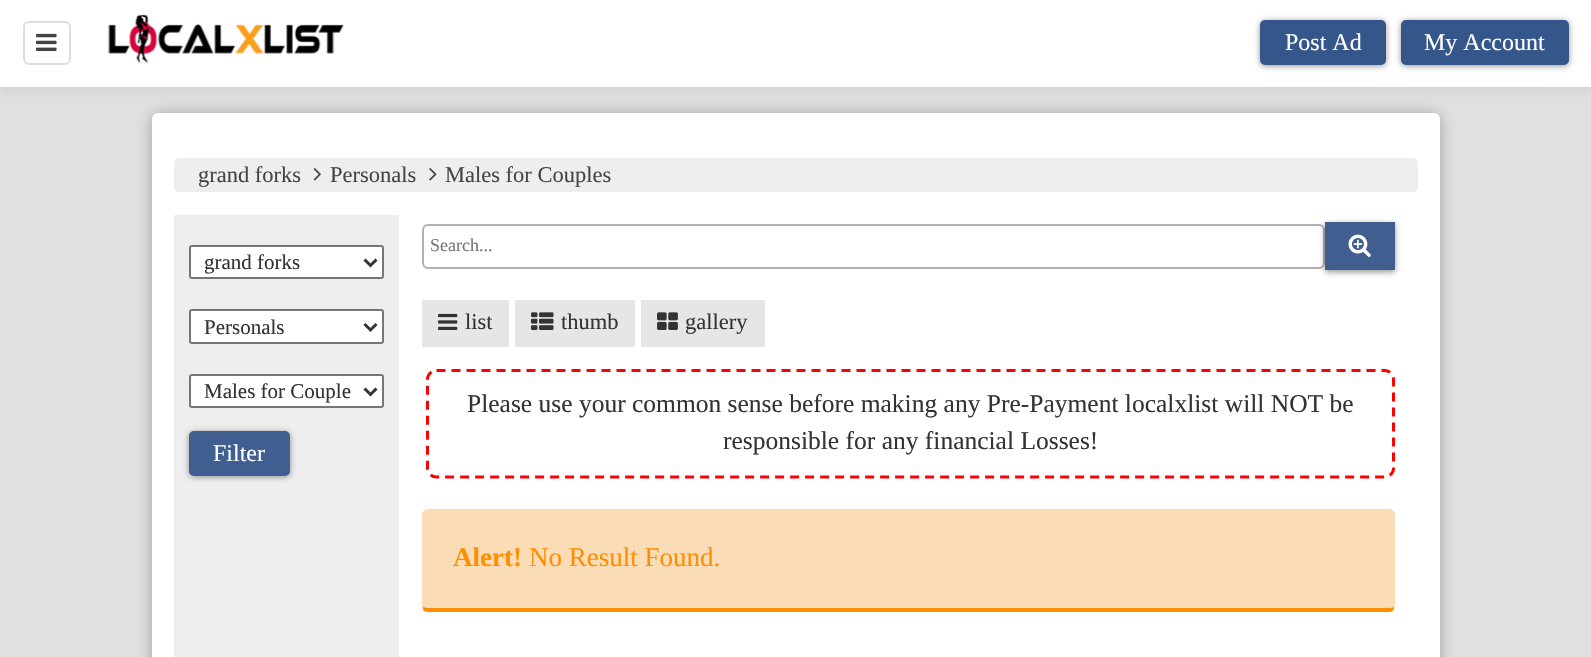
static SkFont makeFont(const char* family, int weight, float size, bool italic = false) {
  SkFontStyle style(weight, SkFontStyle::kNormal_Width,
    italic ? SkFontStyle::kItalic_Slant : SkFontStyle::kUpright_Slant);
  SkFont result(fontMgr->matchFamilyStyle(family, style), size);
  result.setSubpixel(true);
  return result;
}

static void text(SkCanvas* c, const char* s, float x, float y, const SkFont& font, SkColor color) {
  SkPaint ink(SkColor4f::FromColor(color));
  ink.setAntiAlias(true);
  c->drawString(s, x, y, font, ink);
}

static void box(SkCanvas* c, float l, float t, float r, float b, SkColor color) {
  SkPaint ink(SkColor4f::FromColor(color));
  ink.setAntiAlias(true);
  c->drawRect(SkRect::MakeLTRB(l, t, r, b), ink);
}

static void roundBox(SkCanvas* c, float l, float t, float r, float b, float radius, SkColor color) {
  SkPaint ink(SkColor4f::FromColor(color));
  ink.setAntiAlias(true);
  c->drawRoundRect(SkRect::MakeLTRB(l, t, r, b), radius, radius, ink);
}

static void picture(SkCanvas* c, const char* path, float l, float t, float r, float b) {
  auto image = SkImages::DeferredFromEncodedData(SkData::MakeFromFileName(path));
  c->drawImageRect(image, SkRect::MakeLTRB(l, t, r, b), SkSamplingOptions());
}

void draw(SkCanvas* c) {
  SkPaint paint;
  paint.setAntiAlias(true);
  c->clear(0xffe0e0e0);
  paint.setColor(0xffcccccc);
  paint.setMaskFilter(SkMaskFilter::MakeBlur(kNormal_SkBlurStyle, 6));
  c->drawRect(SkRect::MakeLTRB(0, 2, 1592, 89), paint);
  paint.setMaskFilter(nullptr);
  box(c, 0, 0, 1591, 87, 0xffffffff);
  paint.setStyle(SkPaint::kStroke_Style);
  paint.setStrokeWidth(2);
  paint.setColor(0xffdddddd);
  c->drawRoundRect(SkRect::MakeLTRB(24, 22, 70, 64), 5, 5, paint);
  picture(c, "img_01.png", 36, 33, 57, 51);
  picture(c, "img_02.png", 107, 14, 345, 63);
  paint.setStyle(SkPaint::kFill_Style);
  paint.setColor(0x87333333);
  paint.setMaskFilter(SkMaskFilter::MakeBlur(kNormal_SkBlurStyle, 3));
  c->drawRoundRect(SkRect::MakeLTRB(1260, 21, 1386, 66), 5, 5, paint);
  paint.setMaskFilter(nullptr);
  paint.setColor(0xff34568a);
  c->drawRoundRect(SkRect::MakeLTRB(1261, 21, 1385, 64), 4, 4, paint);
  paint.setStyle(SkPaint::kStroke_Style);
  c->drawRoundRect(SkRect::MakeLTRB(1261, 21, 1385, 64), 4, 4, paint);
  SkFont face1 = makeFont("Liberation Serif", 400, 24);
  text(c, "Post Ad", 1285, 50, face1, 0xffffffff);
  paint.setStyle(SkPaint::kFill_Style);
  paint.setColor(0x87333333);
  paint.setMaskFilter(SkMaskFilter::MakeBlur(kNormal_SkBlurStyle, 3));
  c->drawRoundRect(SkRect::MakeLTRB(1401, 21, 1569, 66), 5, 5, paint);
  paint.setMaskFilter(nullptr);
  paint.setColor(0xff34568a);
  c->drawRoundRect(SkRect::MakeLTRB(1402, 21, 1568, 64), 4, 4, paint);
  paint.setStyle(SkPaint::kStroke_Style);
  c->drawRoundRect(SkRect::MakeLTRB(1402, 21, 1568, 64), 4, 4, paint);
  text(c, "My Account", 1424, 50, face1, 0xffffffff);
  paint.setStyle(SkPaint::kFill_Style);
  paint.setColor(0x663c3c3c);
  paint.setMaskFilter(SkMaskFilter::MakeBlur(kNormal_SkBlurStyle, 7.5f));
  c->drawRoundRect(SkRect::MakeLTRB(152, 114, 1440, 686), 6, 6, paint);
  paint.setMaskFilter(nullptr);
  roundBox(c, 152, 113, 1440, 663, 6, 0xffffffff);
  paint.setColor(0xffeeeeee);
  c->drawRoundRect(SkRect::MakeLTRB(175, 159, 1417, 191), 4, 4, paint);
  paint.setStyle(SkPaint::kStroke_Style);
  c->drawRoundRect(SkRect::MakeLTRB(175, 159, 1417, 191), 4, 4, paint);
  SkFont face2 = makeFont("Liberation Serif", 400, 22.5f);
  text(c, "grand forks", 198, 182, face2, 0xff444444);
  picture(c, "img_03.png", 313, 168, 321, 181);
  text(c, "Personals", 330, 182, face2, 0xff444444);
  picture(c, "img_04.png", 429, 168, 437, 181);
  text(c, "Males for Couples", 445, 182, face2, 0xff444444);
  box(c, 174, 215, 399, 657, 0xffeeeeee);
  paint.setStyle(SkPaint::kFill_Style);
  paint.setColor(0xffffffff);
  c->drawRoundRect(SkRect::MakeLTRB(190, 246, 383, 278), 2, 2, paint);
  paint.setStyle(SkPaint::kStroke_Style);
  paint.setColor(0xff767676);
  c->drawRoundRect(SkRect::MakeLTRB(190, 246, 383, 278), 2, 2, paint);
  paint.setStrokeWidth(3);
  paint.setColor(0xff333333);
  c->drawPath(SkPathBuilder().moveTo(364.5f, 259.5f).lineTo(370.5f, 265.5f).lineTo(376.5f, 259.5f).detach(), paint);
  SkFont face3 = makeFont("Liberation Serif", 400, 21);
  text(c, "grand forks", 204, 269, face3, 0xff333333);
  paint.setStyle(SkPaint::kFill_Style);
  paint.setColor(0xffffffff);
  c->drawRoundRect(SkRect::MakeLTRB(190, 310, 383, 343), 2, 2, paint);
  paint.setStyle(SkPaint::kStroke_Style);
  paint.setStrokeWidth(2);
  paint.setColor(0xff767676);
  c->drawRoundRect(SkRect::MakeLTRB(190, 310, 383, 343), 2, 2, paint);
  paint.setStrokeWidth(3);
  paint.setColor(0xff333333);
  c->drawPath(SkPathBuilder().moveTo(364.5f, 324).lineTo(370.5f, 330).lineTo(376.5f, 324).detach(), paint);
  text(c, "Personals", 204, 334, face3, 0xff333333);
  paint.setStyle(SkPaint::kFill_Style);
  paint.setColor(0xffffffff);
  c->drawRoundRect(SkRect::MakeLTRB(190, 375, 383, 407), 2, 2, paint);
  paint.setStyle(SkPaint::kStroke_Style);
  paint.setStrokeWidth(2);
  paint.setColor(0xff767676);
  c->drawRoundRect(SkRect::MakeLTRB(190, 375, 383, 407), 2, 2, paint);
  paint.setStrokeWidth(3);
  paint.setColor(0xff333333);
  c->drawPath(SkPathBuilder().moveTo(364.5f, 388.5f).lineTo(370.5f, 394.5f).lineTo(376.5f, 388.5f).detach(), paint);
  text(c, "Males for Couple", 204, 398, face3, 0xff333333);
  paint.setStyle(SkPaint::kFill_Style);
  paint.setColor(0x87333333);
  paint.setMaskFilter(SkMaskFilter::MakeBlur(kNormal_SkBlurStyle, 3));
  c->drawRoundRect(SkRect::MakeLTRB(189, 432, 290, 477), 5, 5, paint);
  paint.setMaskFilter(nullptr);
  paint.setColor(0xff405e8f);
  c->drawRoundRect(SkRect::MakeLTRB(190, 432, 289, 475), 4, 4, paint);
  paint.setStyle(SkPaint::kStroke_Style);
  paint.setStrokeWidth(2);
  c->drawRoundRect(SkRect::MakeLTRB(190, 432, 289, 475), 4, 4, paint);
  text(c, "Filter", 213, 461, face1, 0xffffffff);
  paint.setColor(0xffb1b1b1);
  c->drawRoundRect(SkRect::MakeLTRB(423, 225, 1324, 268), 5, 5, paint);
  SkFont face4 = makeFont("Liberation Serif", 400, 18);
  text(c, "Search...", 430, 251, face4, 0xff757575);
  paint.setStyle(SkPaint::kFill_Style);
  paint.setColor(0x87333333);
  paint.setMaskFilter(SkMaskFilter::MakeBlur(kNormal_SkBlurStyle, 3));
  c->drawRect(SkRect::MakeLTRB(1325, 224, 1395, 272), paint);
  paint.setMaskFilter(nullptr);
  box(c, 1325, 222, 1395, 270, 0xff405e8f);
  picture(c, "img_05.png", 1348, 234, 1371, 257);
  box(c, 422, 300, 509, 347, 0xffe6e6e6);
  picture(c, "img_06.png", 438, 313, 458, 330);
  text(c, "list", 465, 329, face2, 0xff333333);
  box(c, 515, 300, 635, 347, 0xffe6e6e6);
  picture(c, "img_07.png", 531, 312, 554, 330);
  text(c, "thumb", 561, 329, face2, 0xff333333);
  box(c, 641, 300, 765, 347, 0xffe6e6e6);
  picture(c, "img_08.png", 657, 312, 678, 330);
  text(c, "gallery", 685, 329, face2, 0xff333333);
  paint.setStyle(SkPaint::kStroke_Style);
  paint.setStrokeWidth(3);
  paint.setColor(0xffff0000);
  paint.setPathEffect(SkDashPathEffect::Make({{9, 6}}, 0));
  c->drawPath(SkPathBuilder().moveTo(436.5f, 370.5f).lineTo(1384.5f, 370.5f).cubicTo(1389.5f, 370.5f, 1393.5f, 374.5f, 1393.5f, 379.5f).lineTo(1393.5f, 468).cubicTo(1393.5f, 473, 1389.5f, 477, 1384.5f, 477).lineTo(436.5f, 477).cubicTo(431.5f, 477, 427.5f, 473, 427.5f, 468).lineTo(427.5f, 379.5f).cubicTo(427.5f, 374.5f, 431.5f, 370.5f, 436.5f, 370.5f).close().detach(), paint);
  paint.setPathEffect(nullptr);
  SkFont face5 = makeFont("Liberation Serif", 400, 25.5f);
  text(c, "Please use your common sense before making any Pre-Payment localxlist will NOT be", 467, 412, face5, 0xff333333);
  text(c, "responsible for any financial Losses!", 723, 449, face5, 0xff333333);
  roundBox(c, 422, 509, 1395, 612, 6, 0xfffadcb6);
  paint.setStyle(SkPaint::kFill_Style);
  paint.setColor(0xffff8f00);
  c->drawPath(SkPathBuilder().moveTo(428, 612).lineTo(1389, 612).cubicTo(1391, 612, 1393, 611, 1394, 609).lineTo(1393, 607).cubicTo(1392, 608, 1390, 608, 1389, 608).lineTo(428, 608).cubicTo(426, 608, 424, 607, 423, 607).lineTo(423, 609).cubicTo(423, 611, 425, 612, 428, 612).close().detach(), paint);
  SkFont face6 = makeFont("Liberation Serif", 700, 27);
  text(c, "Alert!", 453, 566, face6, 0xffff8f00);
  SkFont face7 = makeFont("Liberation Serif", 400, 27);
  text(c, "No Result Found.", 529, 566, face7, 0xffff8f00);
}
